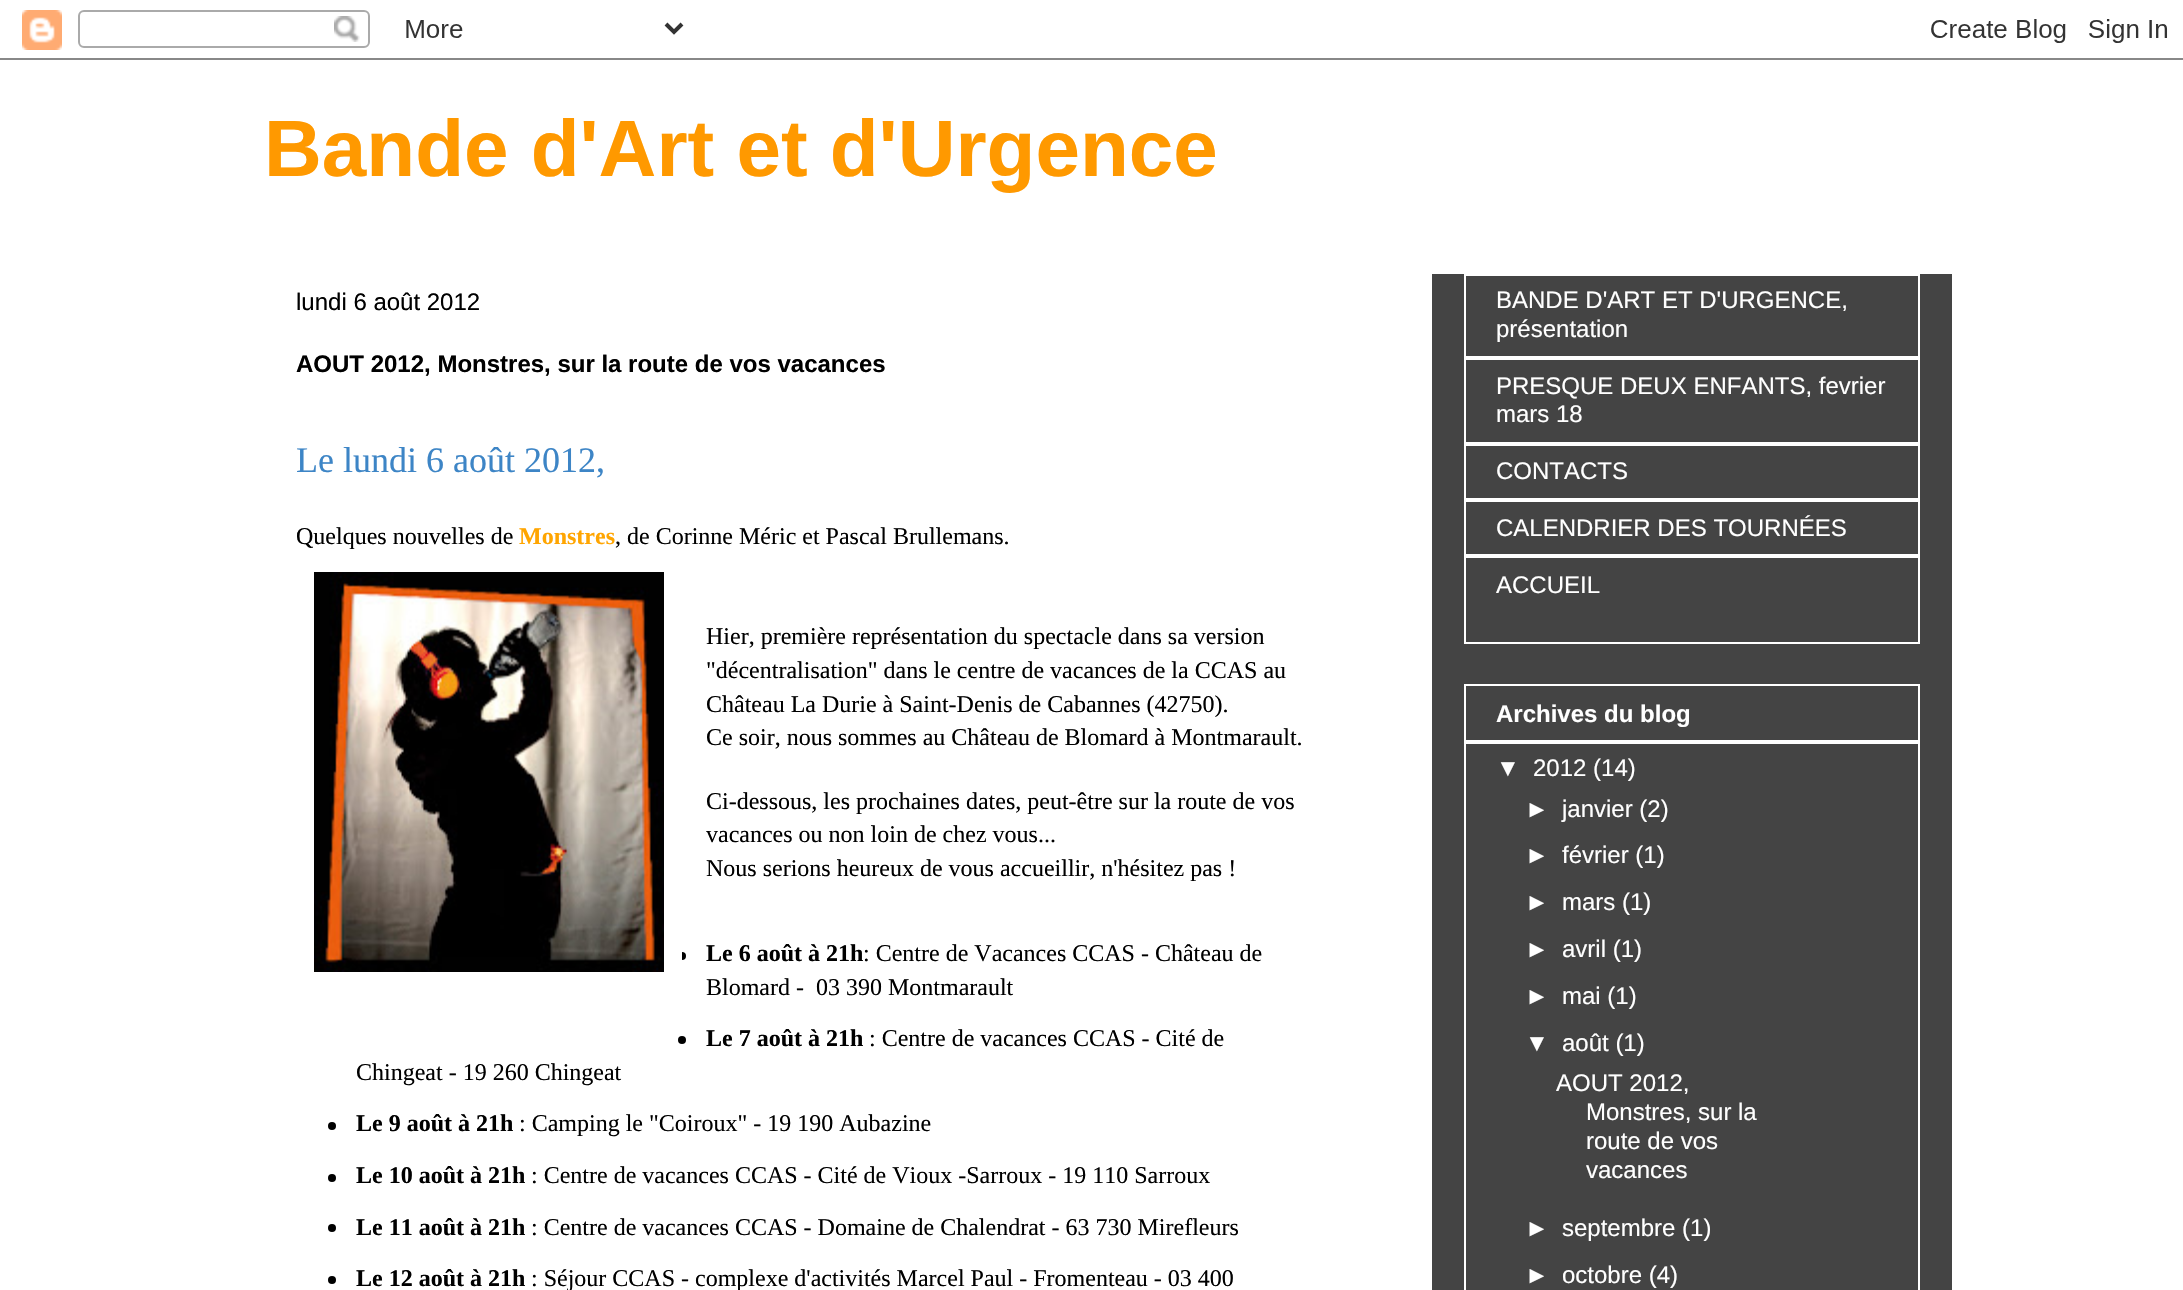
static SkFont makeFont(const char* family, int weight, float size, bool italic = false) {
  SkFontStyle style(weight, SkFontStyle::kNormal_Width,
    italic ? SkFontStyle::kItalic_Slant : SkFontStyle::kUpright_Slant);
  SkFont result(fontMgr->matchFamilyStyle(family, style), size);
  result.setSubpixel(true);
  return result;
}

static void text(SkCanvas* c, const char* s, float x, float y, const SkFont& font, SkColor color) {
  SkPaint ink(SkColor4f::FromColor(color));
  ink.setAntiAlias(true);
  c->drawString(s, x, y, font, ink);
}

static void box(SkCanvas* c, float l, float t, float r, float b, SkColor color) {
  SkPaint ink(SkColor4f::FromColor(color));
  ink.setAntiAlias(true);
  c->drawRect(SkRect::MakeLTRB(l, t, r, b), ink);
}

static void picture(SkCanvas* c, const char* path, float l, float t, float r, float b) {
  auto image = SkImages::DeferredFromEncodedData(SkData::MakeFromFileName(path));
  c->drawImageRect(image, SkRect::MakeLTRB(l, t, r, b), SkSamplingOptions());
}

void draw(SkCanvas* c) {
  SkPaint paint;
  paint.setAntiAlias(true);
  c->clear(0xffffffff);
  picture(c, "img_01.png", 0, 10, 2183, 60);
  SkFont face1 = makeFont("Liberation Sans", 700, 80);
  text(c, "Bande d'Art et d'Urgence", 264, 176, face1, 0xffff9900);
  SkFont face2 = makeFont("Liberation Sans", 400, 24);
  text(c, "lundi 6 août 2012", 296, 310, face2, 0xff000000);
  SkFont face3 = makeFont("Liberation Sans", 700, 24);
  text(c, "AOUT 2012, Monstres, sur la route de vos vacances", 296, 372, face3, 0xff000000);
  SkFont face4 = makeFont("Liberation Serif", 400, 36);
  text(c, "Le lundi 6 août 2012,", 296, 472, face4, 0xff3d85c6);
  SkFont face5 = makeFont("Liberation Serif", 400, 24);
  text(c, "Quelques nouvelles de", 296, 544, face5, 0xff000000);
  SkFont face6 = makeFont("Liberation Serif", 700, 24);
  text(c, "Monstres", 519, 544, face6, 0xffffa500);
  text(c, ", de Corinne Méric et Pascal Brullemans.", 615, 544, face5, 0xff000000);
  picture(c, "img_02.png", 314, 572, 664, 972);
  paint.setColor(0xff000000);
  c->drawCircle(682, 956, 4, paint);
  box(c, 678, 952, 682, 960, 0xffffffff);
  text(c, "Hier, première représentation du spectacle dans sa version", 706, 644, face5, 0xff000000);
  text(c, "\"décentralisation\" dans le centre de vacances de la CCAS au", 706, 678, face5, 0xff000000);
  text(c, "Château La Durie à Saint-Denis de Cabannes (42750).", 706, 712, face5, 0xff000000);
  text(c, "Ce soir, nous sommes au Château de Blomard à Montmarault.", 706, 745, face5, 0xff000000);
  text(c, "Ci-dessous, les prochaines dates, peut-être sur la route de vos", 706, 809, face5, 0xff000000);
  text(c, "vacances ou non loin de chez vous...", 706, 842, face5, 0xff000000);
  text(c, "Nous serions heureux de vous accueillir, n'hésitez pas !", 706, 876, face5, 0xff000000);
  text(c, "Le 6 août à 21h", 706, 961, face6, 0xff000000);
  text(c, ": Centre de Vacances CCAS - Château de", 863, 961, face5, 0xff000000);
  text(c, "Blomard -  03 390 Montmarault", 706, 995, face5, 0xff000000);
  c->drawCircle(682, 1040, 4, paint);
  text(c, "Le 7 août à 21h", 706, 1046, face6, 0xff000000);
  text(c, ": Centre de vacances CCAS - Cité de", 869, 1046, face5, 0xff000000);
  text(c, "Chingeat - 19 260 Chingeat", 356, 1080, face5, 0xff000000);
  c->drawCircle(332, 1126, 4, paint);
  text(c, "Le 9 août à 21h", 356, 1131, face6, 0xff000000);
  text(c, ": Camping le \"Coiroux\" - 19 190 Aubazine", 519, 1131, face5, 0xff000000);
  c->drawCircle(332, 1178, 4, paint);
  text(c, "Le 10 août à 21h", 356, 1183, face6, 0xff000000);
  text(c, ": Centre de vacances CCAS - Cité de Vioux -Sarroux - 19 110 Sarroux", 531, 1183, face5, 0xff000000);
  c->drawCircle(332, 1228, 4, paint);
  text(c, "Le 11 août à 21h", 356, 1235, face6, 0xff000000);
  text(c, ": Centre de vacances CCAS - Domaine de Chalendrat - 63 730 Mirefleurs", 531, 1235, face5, 0xff000000);
  c->drawCircle(332, 1280, 4, paint);
  text(c, "Le 12 août à 21h", 356, 1286, face6, 0xff000000);
  text(c, ": Séjour CCAS - complexe d'activités Marcel Paul - Fromenteau - 03 400", 531, 1286, face5, 0xff000000);
  box(c, 1432, 274, 1952, 1290, 0xff444444);
  paint.setStyle(SkPaint::kStroke_Style);
  paint.setStrokeWidth(2);
  paint.setColor(0xffffffff);
  c->drawRect(SkRect::MakeLTRB(1465, 275, 1919, 643), paint);
  box(c, 1466, 356, 1918, 360, 0xffffffff);
  text(c, "BANDE D'ART ET D'URGENCE,", 1496, 308, face2, 0xffffffff);
  text(c, "présentation", 1496, 337, face2, 0xffffffff);
  box(c, 1466, 442, 1918, 446, 0xffffffff);
  text(c, "PRESQUE DEUX ENFANTS, fevrier", 1496, 394, face2, 0xffffffff);
  text(c, "mars 18", 1496, 422, face2, 0xffffffff);
  box(c, 1466, 498, 1918, 502, 0xffffffff);
  text(c, "CONTACTS", 1496, 479, face2, 0xffffffff);
  box(c, 1466, 554, 1918, 558, 0xffffffff);
  text(c, "CALENDRIER DES TOURNÉES", 1496, 536, face2, 0xffffffff);
  text(c, "ACCUEIL", 1496, 593, face2, 0xffffffff);
  c->drawRect(SkRect::MakeLTRB(1465, 685, 1919, 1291), paint);
  text(c, "Archives du blog", 1496, 722, face3, 0xffffffff);
  box(c, 1466, 740, 1918, 744, 0xffffffff);
  text(c, "▼", 1496, 776, face2, 0xffffffff);
  text(c, "2012 (14)", 1533, 776, face2, 0xffffffff);
  text(c, "►", 1525, 817, face2, 0xffffffff);
  text(c, "janvier (2)", 1562, 817, face2, 0xffffffff);
  text(c, "►", 1525, 863, face2, 0xffffffff);
  text(c, "février (1)", 1562, 863, face2, 0xffffffff);
  text(c, "►", 1525, 910, face2, 0xffffffff);
  text(c, "mars (1)", 1562, 910, face2, 0xffffffff);
  text(c, "►", 1525, 957, face2, 0xffffffff);
  text(c, "avril (1)", 1562, 957, face2, 0xffffffff);
  text(c, "►", 1525, 1004, face2, 0xffffffff);
  text(c, "mai (1)", 1562, 1004, face2, 0xffffffff);
  text(c, "▼", 1525, 1051, face2, 0xffffffff);
  text(c, "août (1)", 1562, 1051, face2, 0xffffffff);
  text(c, "AOUT 2012,", 1556, 1091, face2, 0xffffffff);
  text(c, "Monstres, sur la", 1586, 1120, face2, 0xffffffff);
  text(c, "route de vos", 1586, 1149, face2, 0xffffffff);
  text(c, "vacances", 1586, 1178, face2, 0xffffffff);
  text(c, "►", 1525, 1236, face2, 0xffffffff);
  text(c, "septembre (1)", 1562, 1236, face2, 0xffffffff);
  text(c, "►", 1525, 1283, face2, 0xffffffff);
  text(c, "octobre (4)", 1562, 1283, face2, 0xffffffff);
}
